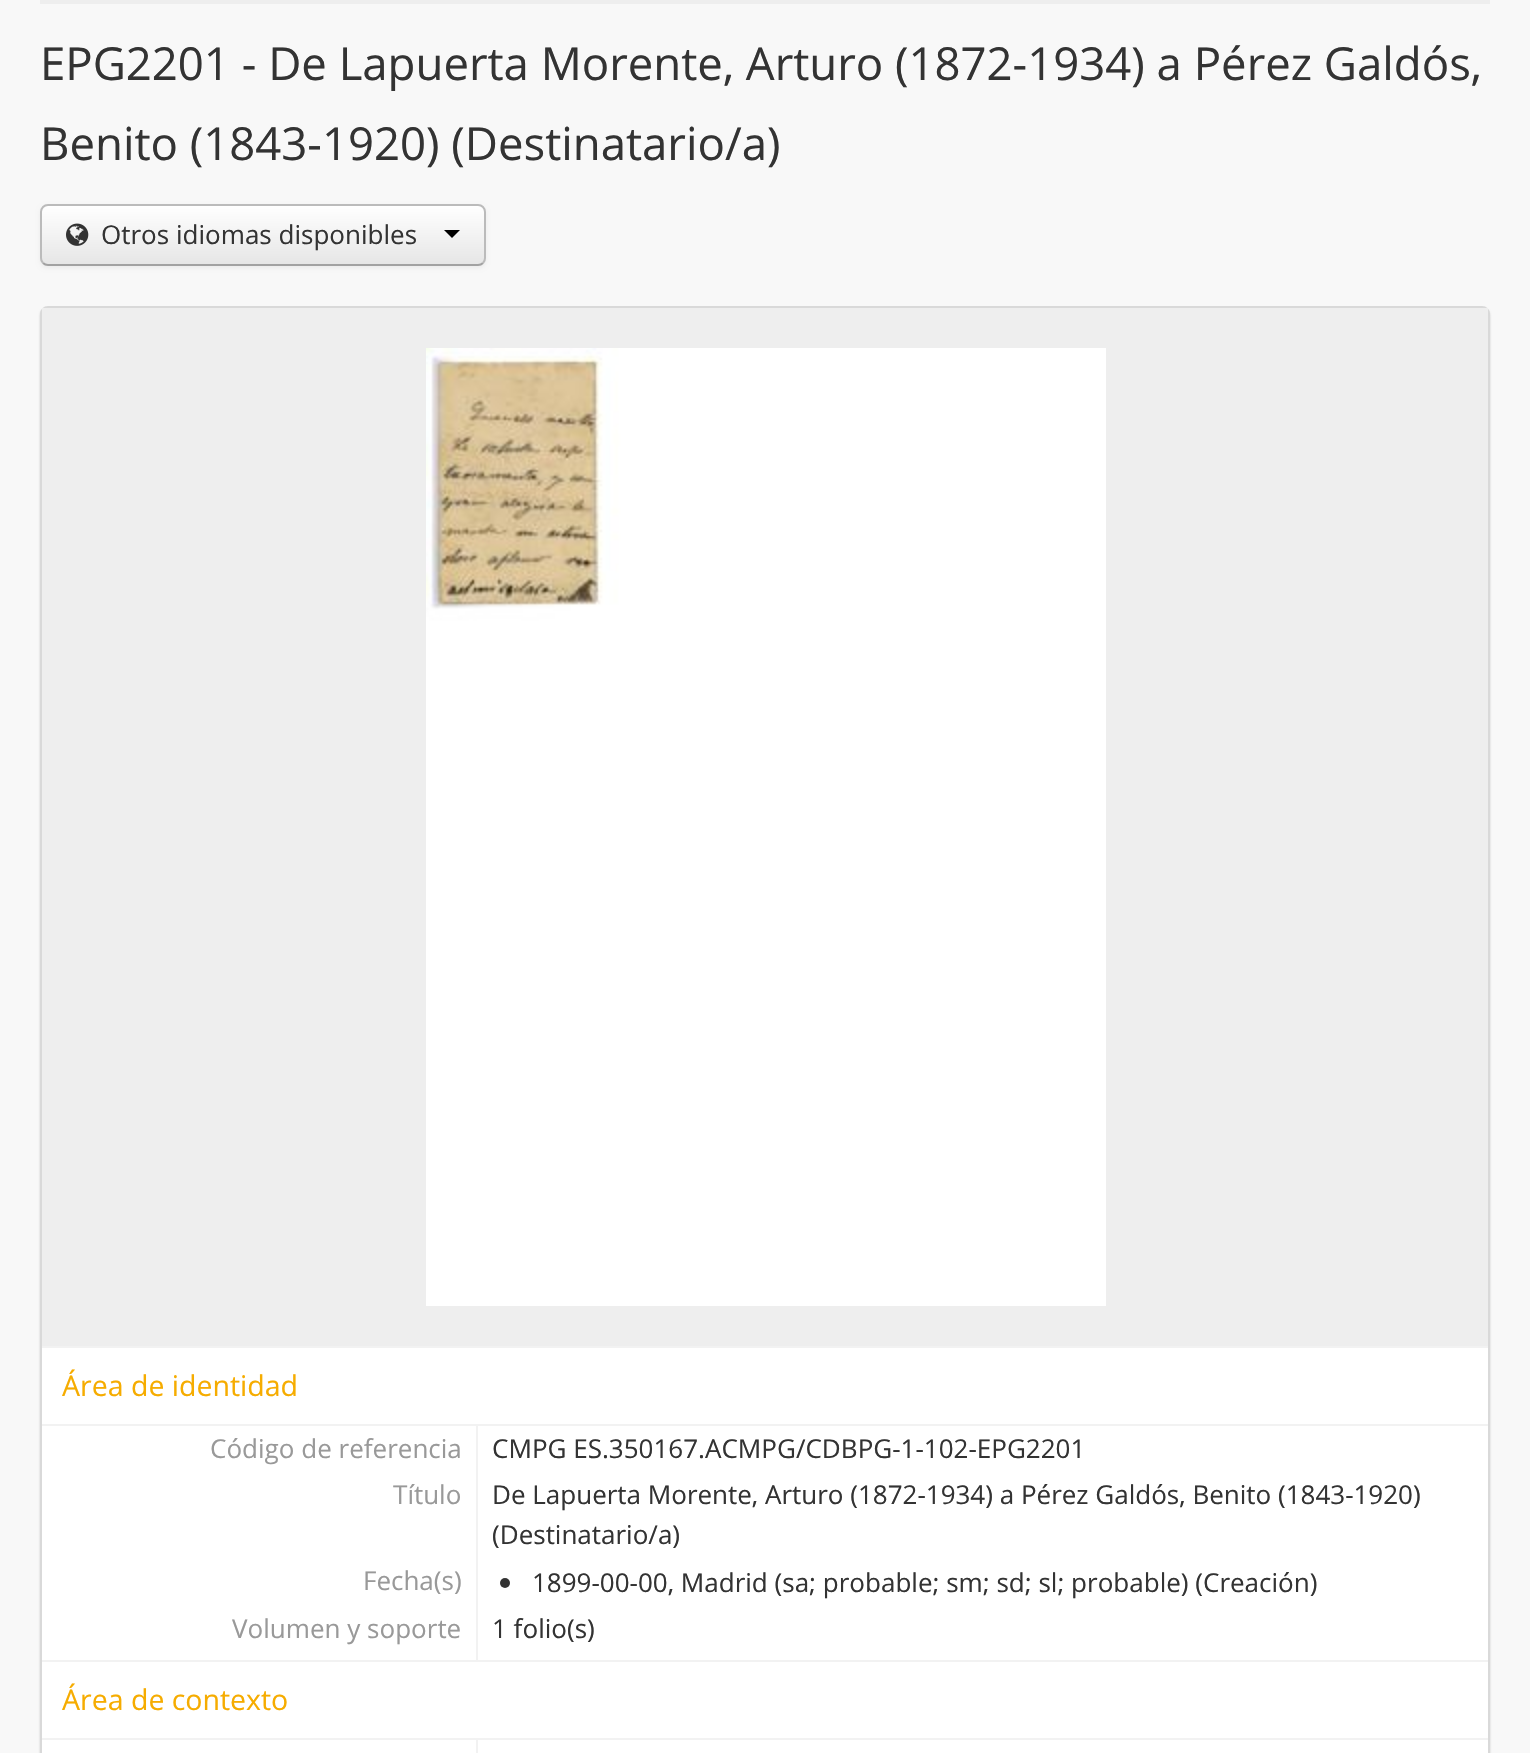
static SkFont makeFont(const char* family, int weight, float size, bool italic = false) {
  SkFontStyle style(weight, SkFontStyle::kNormal_Width,
    italic ? SkFontStyle::kItalic_Slant : SkFontStyle::kUpright_Slant);
  SkFont result(fontMgr->matchFamilyStyle(family, style), size);
  result.setSubpixel(true);
  return result;
}

static void text(SkCanvas* c, const char* s, float x, float y, const SkFont& font, SkColor color) {
  SkPaint ink(SkColor4f::FromColor(color));
  ink.setAntiAlias(true);
  c->drawString(s, x, y, font, ink);
}

static void box(SkCanvas* c, float l, float t, float r, float b, SkColor color) {
  SkPaint ink(SkColor4f::FromColor(color));
  ink.setAntiAlias(true);
  c->drawRect(SkRect::MakeLTRB(l, t, r, b), ink);
}

static void picture(SkCanvas* c, const char* path, float l, float t, float r, float b) {
  auto image = SkImages::DeferredFromEncodedData(SkData::MakeFromFileName(path));
  c->drawImageRect(image, SkRect::MakeLTRB(l, t, r, b), SkSamplingOptions());
}

void draw(SkCanvas* c) {
  SkPaint paint;
  paint.setAntiAlias(true);
  c->clear(0xfff8f8f8);
  box(c, 40, 0, 1490, 4, 0xffeeeeee);
  SkFont face1 = makeFont("Open Sans", 400, 45.5f);
  text(c, "EPG2201 - De Lapuerta Morente, Arturo (1872-1934) a Pérez Galdós,", 40, 80, face1, 0xff333333);
  text(c, "Benito (1843-1920) (Destinatario/a)", 40, 160, face1, 0xff333333);
  paint.setColor(0x0d000000);
  paint.setMaskFilter(SkMaskFilter::MakeBlur(kNormal_SkBlurStyle, 2));
  c->drawRoundRect(SkRect::MakeLTRB(40, 206, 486, 268), 8, 8, paint);
  paint.setMaskFilter(nullptr);
  c->save();
  c->clipPath(SkPathBuilder().moveTo(48, 204).lineTo(478, 204).cubicTo(482.5f, 204, 486, 207.5f, 486, 212).lineTo(486, 258).cubicTo(486, 262.5f, 482.5f, 266, 478, 266).lineTo(48, 266).cubicTo(43.5f, 266, 40, 262.5f, 40, 258).lineTo(40, 212).cubicTo(40, 207.5f, 43.5f, 204, 48, 204).close().detach(), true);
  {
    const SkColor colors[] = {0xffffffff, 0xffe6e6e6};
    const float stops[] = {0, 1};
    const SkPoint ends[] = {{263, 206}, {263, 264}};
    paint.setShader(SkGradientShader::MakeLinear(ends, colors, stops, 2, SkTileMode::kClamp));
    paint.setAlpha(255);
  }
  c->drawRect(SkRect::MakeLTRB(40, 206, 486, 264), paint);
  c->restore();
  paint.setStyle(SkPaint::kStroke_Style);
  paint.setStrokeWidth(2);
  paint.setShader(nullptr);
  paint.setColor(0xffa2a2a2);
  c->drawPath(SkPathBuilder().moveTo(483, 263).cubicTo(481.5f, 264.5f, 480, 265, 478, 265).lineTo(48, 265).cubicTo(46, 265, 44.5f, 264.5f, 43, 263).detach(), paint);
  paint.setColor(0xffbbbbbb);
  c->drawPath(SkPathBuilder().moveTo(43, 263).cubicTo(41.5f, 261.5f, 41, 260, 41, 258).lineTo(41, 212).cubicTo(41, 210, 41.5f, 208.5f, 43, 207).cubicTo(44.5f, 205.5f, 46, 205, 48, 205).lineTo(478, 205).cubicTo(480, 205, 481.5f, 205.5f, 483, 207).cubicTo(484.5f, 208.5f, 485, 210, 485, 212).lineTo(485, 258).cubicTo(485, 260, 484.5f, 261.5f, 483, 263).detach(), paint);
  picture(c, "img_01.png", 66, 223, 89, 246);
  SkFont face2 = makeFont("Open Sans", 400, 26);
  text(c, "Otros idiomas disponibles", 101, 244, face2, 0xff333333);
  paint.setStyle(SkPaint::kFill_Style);
  paint.setColor(0xff000000);
  c->drawPath(SkPathBuilder().moveTo(444, 230).lineTo(460, 230).lineTo(452, 238).close().detach(), paint);
  paint.setColor(0x33000000);
  paint.setMaskFilter(SkMaskFilter::MakeBlur(kNormal_SkBlurStyle, 1));
  c->drawRoundRect(SkRect::MakeLTRB(40, 308, 1490, 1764), 8, 8, paint);
  paint.setMaskFilter(nullptr);
  paint.setColor(0xffffffff);
  c->drawRoundRect(SkRect::MakeLTRB(41, 307, 1489, 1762), 7, 7, paint);
  paint.setStyle(SkPaint::kStroke_Style);
  paint.setColor(0xffd9d9d9);
  c->drawRoundRect(SkRect::MakeLTRB(41, 307, 1489, 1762), 7, 7, paint);
  box(c, 42, 308, 1488, 1346, 0xffeeeeee);
  picture(c, "img_02.png", 426, 348, 1106, 1306);
  box(c, 42, 1346, 1488, 1348, 0xfff2f2f2);
  box(c, 42, 1424, 1488, 1426, 0xfff2f2f2);
  SkFont face3 = makeFont("Open Sans", 400, 28.5f);
  text(c, "Área de identidad", 62, 1396, face3, 0xfff6ac00);
  box(c, 476, 1426, 478, 1660, 0xfff2f2f2);
  text(c, "Código de referencia", 210, 1458, face2, 0xff999999);
  text(c, "CMPG ES.350167.ACMPG/CDBPG-1-102-EPG2201", 492, 1458, face2, 0xff333333);
  text(c, "Título", 393, 1504, face2, 0xff999999);
  text(c, "De Lapuerta Morente, Arturo (1872-1934) a Pérez Galdós, Benito (1843-1920)", 492, 1504, face2, 0xff333333);
  text(c, "(Destinatario/a)", 492, 1544, face2, 0xff333333);
  text(c, "Fecha(s)", 363, 1590, face2, 0xff999999);
  paint.setStyle(SkPaint::kFill_Style);
  paint.setColor(0xff333333);
  c->drawCircle(505, 1583, 5, paint);
  text(c, "1899-00-00, Madrid (sa; probable; sm; sd; sl; probable) (Creación)", 532, 1592, face2, 0xff333333);
  text(c, "Volumen y soporte", 232, 1638, face2, 0xff999999);
  text(c, "1 folio(s)", 492, 1638, face2, 0xff333333);
  box(c, 42, 1660, 1488, 1662, 0xfff2f2f2);
  box(c, 42, 1738, 1488, 1740, 0xfff2f2f2);
  text(c, "Área de contexto", 62, 1710, face3, 0xfff6ac00);
  box(c, 476, 1740, 478, 1753, 0xfff2f2f2);
}
